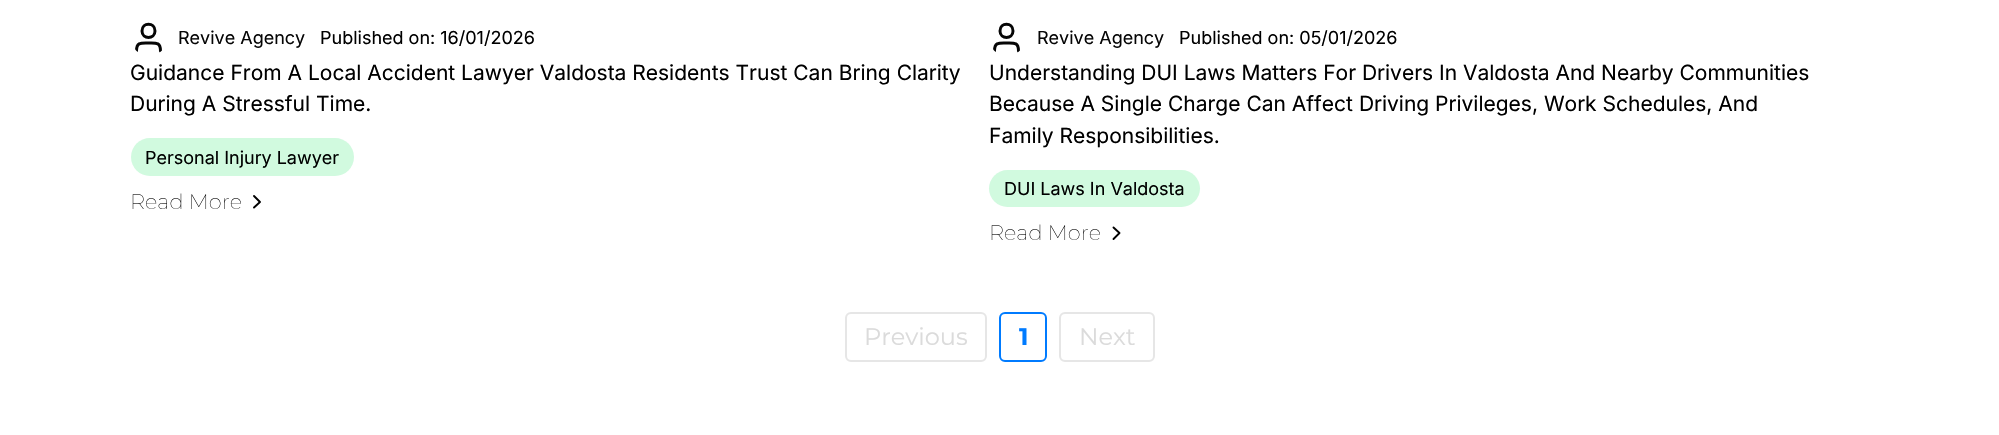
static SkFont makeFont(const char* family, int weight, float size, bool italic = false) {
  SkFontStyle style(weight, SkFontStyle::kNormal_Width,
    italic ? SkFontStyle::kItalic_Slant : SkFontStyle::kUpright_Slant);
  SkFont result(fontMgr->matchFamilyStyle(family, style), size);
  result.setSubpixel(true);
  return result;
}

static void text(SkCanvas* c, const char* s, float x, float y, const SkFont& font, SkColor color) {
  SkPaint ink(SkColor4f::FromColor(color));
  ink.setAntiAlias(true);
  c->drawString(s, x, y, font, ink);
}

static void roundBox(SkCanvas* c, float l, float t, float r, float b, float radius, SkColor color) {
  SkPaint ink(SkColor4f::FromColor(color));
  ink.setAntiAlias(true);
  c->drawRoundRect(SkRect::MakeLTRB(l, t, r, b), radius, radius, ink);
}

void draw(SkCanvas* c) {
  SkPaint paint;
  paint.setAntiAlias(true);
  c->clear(0xffffffff);
  c->save();
  c->clipPath(SkPathBuilder().moveTo(149, 20).cubicTo(159, 20, 167, 28, 167, 38).cubicTo(167, 48, 159, 56, 149, 56).cubicTo(139, 56, 131, 48, 131, 38).cubicTo(131, 28, 139, 20, 149, 20).close().detach(), true);
  paint.setStyle(SkPaint::kStroke_Style);
  paint.setStrokeWidth(3);
  paint.setStrokeCap(SkPaint::kRound_Cap);
  paint.setStrokeJoin(SkPaint::kRound_Join);
  paint.setColor(0xff060606);
  c->drawPath(SkPathBuilder().moveTo(160.5f, 51).cubicTo(160.5f, 42, 156, 43, 148.5f, 43).cubicTo(141, 43, 136.5f, 42, 136.5f, 51).moveTo(155, 31).cubicTo(155, 39.5f, 142, 39.5f, 142, 31).cubicTo(142, 22, 155, 22, 155, 31).close().detach(), paint);
  c->restore();
  SkFont face1 = makeFont("Inter", 400, 18);
  text(c, "Revive Agency", 178, 44, face1, 0xff060606);
  text(c, "Published on: 16/01/2026", 320, 44, face1, 0xff000000);
  SkFont face2 = makeFont("Inter", 400, 21);
  text(c, "Guidance From A Local Accident Lawyer Valdosta Residents Trust Can Bring Clarity", 130, 80, face2, 0xff000000);
  text(c, "During A Stressful Time.", 130, 111, face2, 0xff000000);
  roundBox(c, 131, 138, 354, 176, 19, 0xffd1fadf);
  text(c, "Personal Injury Lawyer", 145, 164, face1, 0xff000000);
  SkFont face3 = makeFont("Montserrat", 100, 21);
  text(c, "Read More", 130, 209, face3, 0xff000000);
  paint.setStrokeWidth(1.9f);
  paint.setColor(0xff000000);
  c->drawPath(SkPathBuilder().moveTo(254, 207.5f).lineTo(260, 202).lineTo(254, 196).detach(), paint);
  c->save();
  c->clipPath(SkPathBuilder().moveTo(1007, 20).cubicTo(1017, 20, 1025, 28, 1025, 38).cubicTo(1025, 48, 1017, 56, 1007, 56).cubicTo(997, 56, 989, 48, 989, 38).cubicTo(989, 28, 997, 20, 1007, 20).close().detach(), true);
  paint.setStrokeWidth(3);
  paint.setColor(0xff060606);
  c->drawPath(SkPathBuilder().moveTo(1018.5f, 51).cubicTo(1018.5f, 42, 1014, 43, 1006.5f, 43).cubicTo(999, 43, 994.5f, 42, 994.5f, 51).moveTo(1013, 31).cubicTo(1013, 39.5f, 1000, 39.5f, 1000, 31).cubicTo(1000, 22, 1013, 22, 1013, 31).close().detach(), paint);
  c->restore();
  text(c, "Revive Agency", 1037, 44, face1, 0xff060606);
  text(c, "Published on: 05/01/2026", 1179, 44, face1, 0xff000000);
  text(c, "Understanding DUI Laws Matters For Drivers In Valdosta And Nearby Communities", 989, 80, face2, 0xff000000);
  text(c, "Because A Single Charge Can Affect Driving Privileges, Work Schedules, And", 989, 111, face2, 0xff000000);
  text(c, "Family Responsibilities.", 989, 143, face2, 0xff000000);
  roundBox(c, 989, 170, 1200, 207, 18.5f, 0xffd1fadf);
  text(c, "DUI Laws In Valdosta", 1004, 195, face1, 0xff000000);
  text(c, "Read More", 989, 240, face3, 0xff000000);
  paint.setStrokeWidth(1.9f);
  paint.setColor(0xff000000);
  c->drawPath(SkPathBuilder().moveTo(1113.5f, 239).lineTo(1119.5f, 233).lineTo(1113.5f, 227.5f).detach(), paint);
  paint.setStrokeWidth(2);
  paint.setStrokeCap(SkPaint::kButt_Cap);
  paint.setStrokeJoin(SkPaint::kMiter_Join);
  paint.setColor(0xffe6e6e6);
  c->drawRoundRect(SkRect::MakeLTRB(846, 313, 986, 361), 5, 5, paint);
  SkFont face4 = makeFont("Montserrat", 400, 24);
  text(c, "Previous", 864, 345, face4, 0xffdbdbdb);
  paint.setColor(0xff007bff);
  c->drawRoundRect(SkRect::MakeLTRB(1000, 313, 1046, 361), 5, 5, paint);
  SkFont face5 = makeFont("Montserrat", 700, 24);
  text(c, "1", 1019, 345, face5, 0xff007bff);
  paint.setColor(0xffe6e6e6);
  c->drawRoundRect(SkRect::MakeLTRB(1060, 313, 1154, 361), 5, 5, paint);
  text(c, "Next", 1079, 345, face4, 0xffdbdbdb);
}
